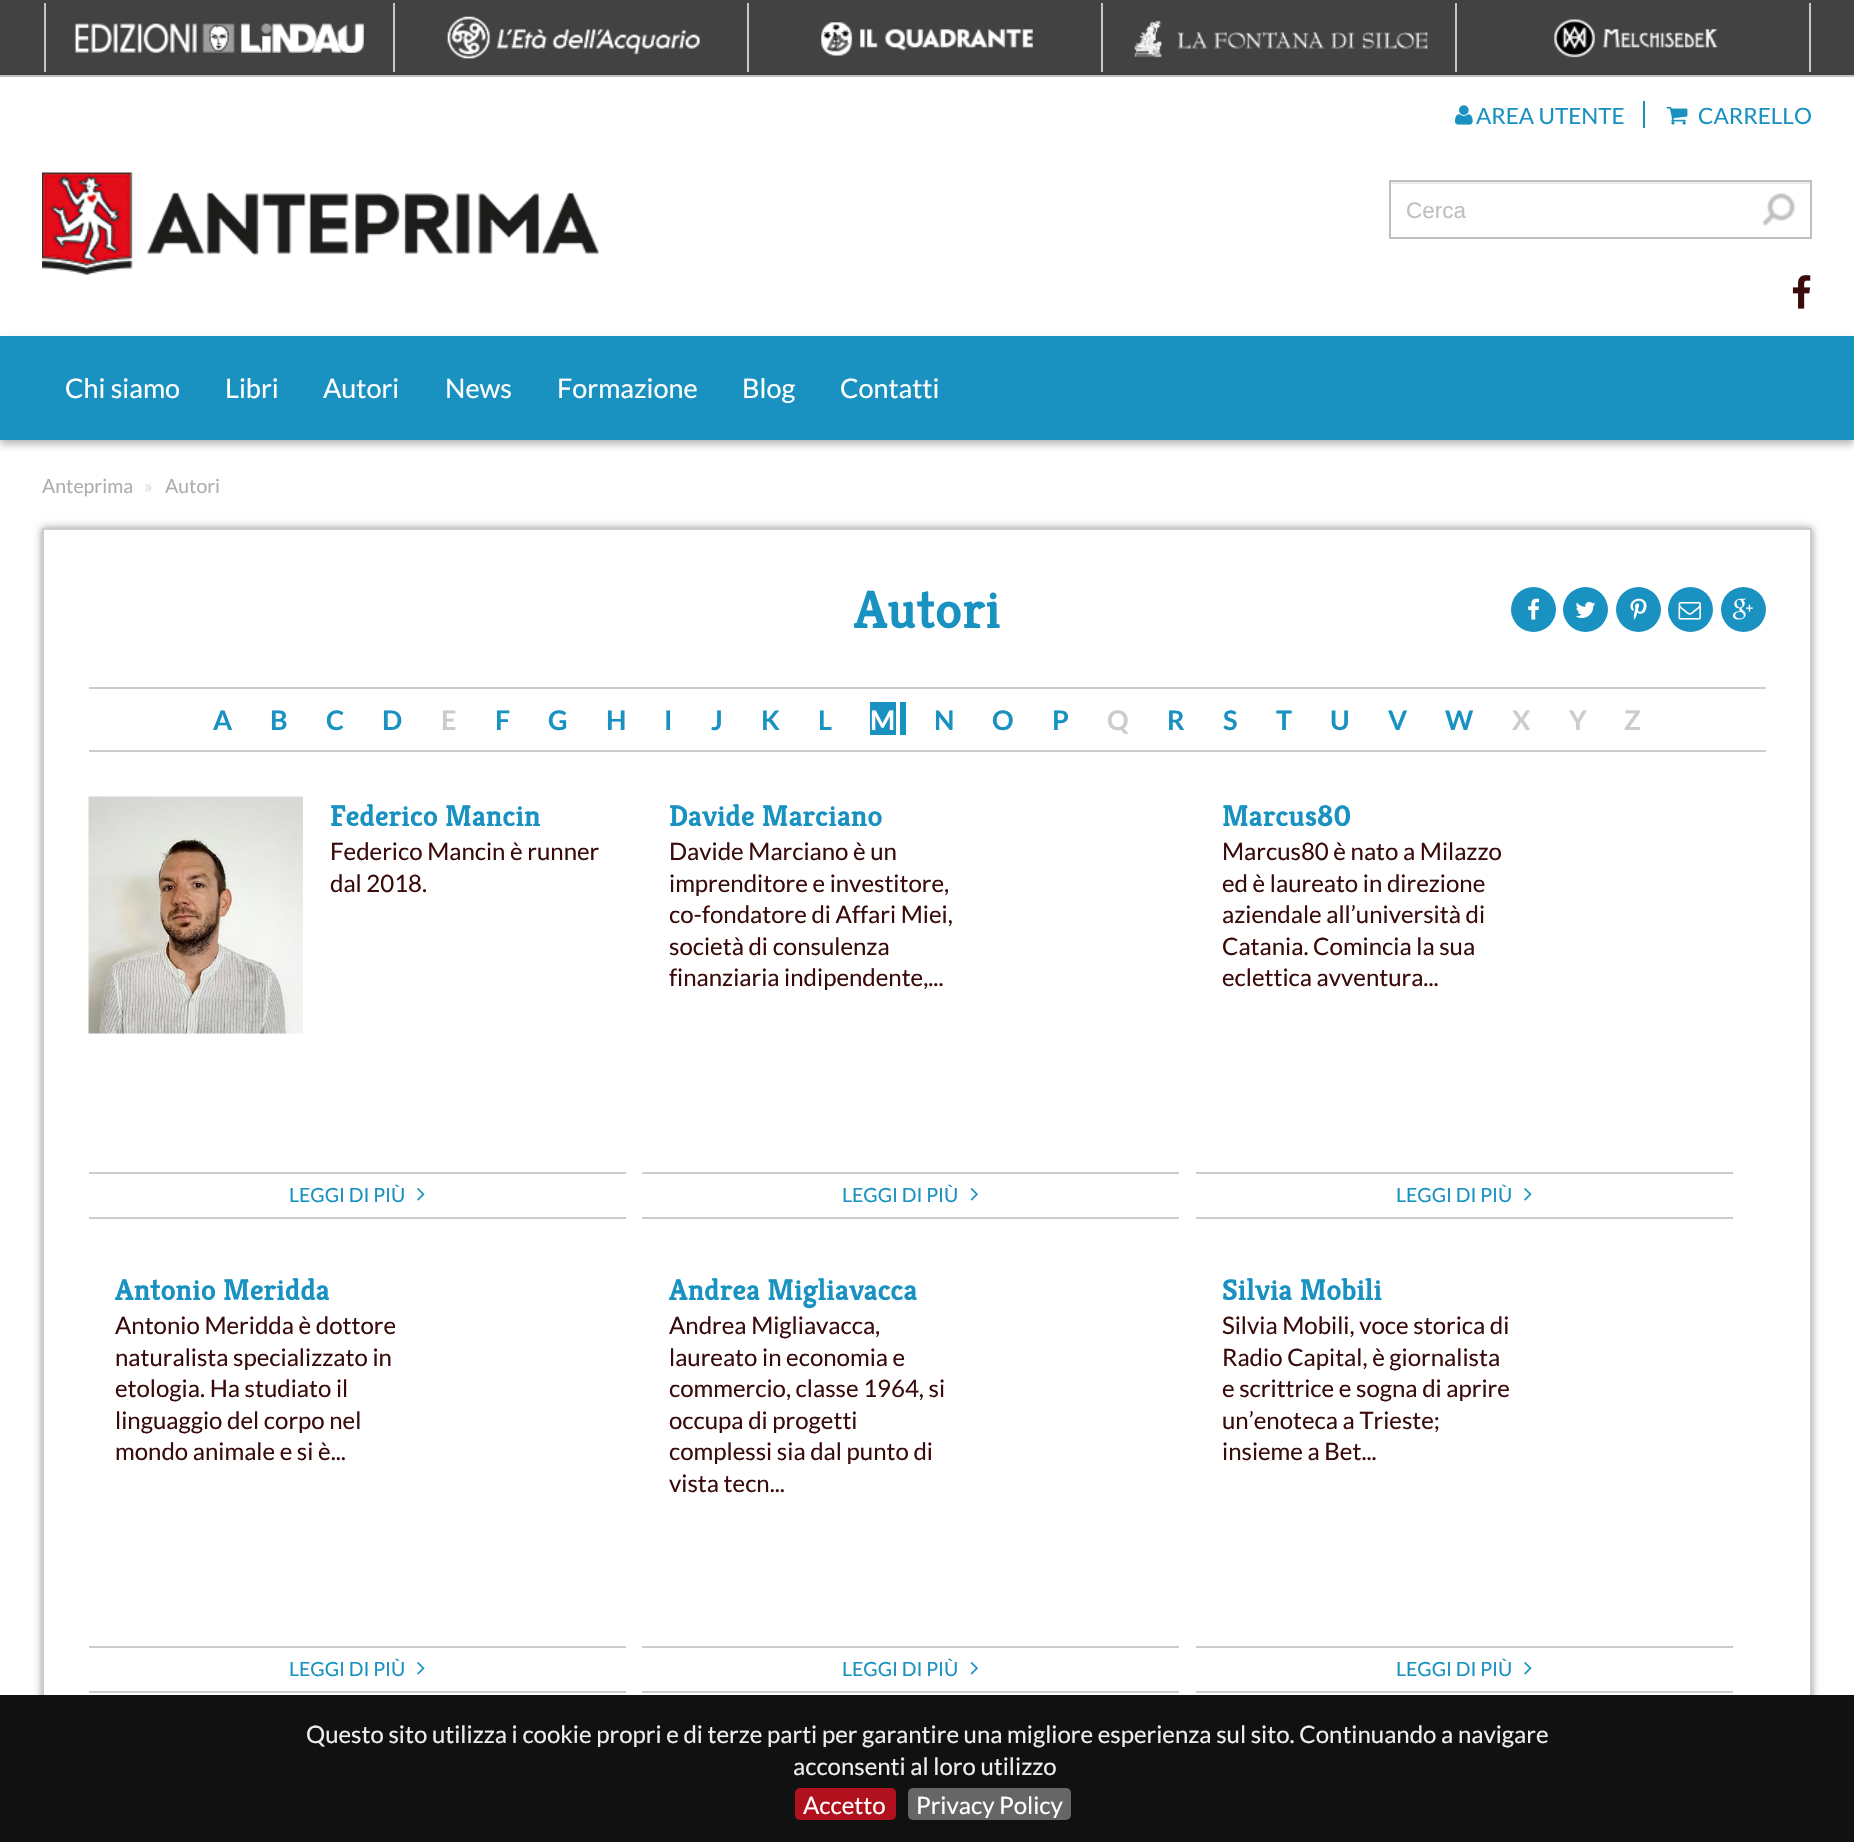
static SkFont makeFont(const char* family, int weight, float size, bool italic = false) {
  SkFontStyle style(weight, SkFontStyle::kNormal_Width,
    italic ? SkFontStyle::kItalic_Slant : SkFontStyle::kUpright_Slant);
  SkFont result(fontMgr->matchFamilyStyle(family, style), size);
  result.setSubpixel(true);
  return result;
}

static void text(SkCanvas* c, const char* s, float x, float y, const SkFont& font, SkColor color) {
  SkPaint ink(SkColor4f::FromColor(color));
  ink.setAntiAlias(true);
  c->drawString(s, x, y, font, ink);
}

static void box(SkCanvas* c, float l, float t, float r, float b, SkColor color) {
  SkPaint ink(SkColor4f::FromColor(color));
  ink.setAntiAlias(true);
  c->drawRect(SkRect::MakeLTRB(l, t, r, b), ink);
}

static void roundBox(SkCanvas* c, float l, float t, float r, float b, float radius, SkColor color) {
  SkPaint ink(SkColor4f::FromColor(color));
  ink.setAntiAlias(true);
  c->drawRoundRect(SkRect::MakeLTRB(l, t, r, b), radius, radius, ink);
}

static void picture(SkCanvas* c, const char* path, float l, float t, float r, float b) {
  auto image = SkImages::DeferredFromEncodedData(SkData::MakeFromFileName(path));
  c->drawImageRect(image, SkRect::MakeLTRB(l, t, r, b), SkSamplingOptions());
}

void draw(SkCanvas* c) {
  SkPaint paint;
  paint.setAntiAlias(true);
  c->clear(0xffffffff);
  box(c, 0, 0, 1854, 75, 0xff424242);
  box(c, 0, 75, 1854, 77, 0xffbfbfbf);
  box(c, 393, 3, 395, 72, 0xffc6c6c6);
  box(c, 44, 3, 46, 72, 0xffc6c6c6);
  picture(c, "img_01.png", 74, 23, 364, 53);
  box(c, 747, 3, 749, 72, 0xffc6c6c6);
  picture(c, "img_02.png", 447, 16, 700, 59);
  box(c, 1101, 3, 1103, 72, 0xffc6c6c6);
  picture(c, "img_03.png", 821, 22, 1033, 56);
  box(c, 1455, 3, 1457, 72, 0xffc6c6c6);
  picture(c, "img_04.png", 1134, 20, 1428, 58);
  box(c, 1809, 3, 1811, 72, 0xffc6c6c6);
  picture(c, "img_05.png", 1554, 19, 1718, 58);
  box(c, 1643, 101, 1645, 128, 0xff1991c1);
  picture(c, "img_06.png", 1455, 105, 1473, 125);
  SkFont face1 = makeFont("Lato", 400, 22.5f);
  text(c, "AREA UTENTE", 1476, 124, face1, 0xff1991c1);
  picture(c, "img_07.png", 1666, 106, 1688, 125);
  text(c, "CARRELLO", 1698, 124, face1, 0xff1991c1);
  picture(c, "img_08.png", 42, 172, 599, 275);
  picture(c, "img_09.png", 1762, 193, 1796, 226);
  box(c, 1391, 182, 1811, 184, 0xffececec);
  paint.setStyle(SkPaint::kStroke_Style);
  paint.setStrokeWidth(2);
  paint.setColor(0xffbfbfbf);
  c->drawRect(SkRect::MakeLTRB(1390, 181, 1811, 238), paint);
  SkFont face2 = makeFont("Liberation Sans", 400, 22.5f);
  text(c, "Cerca", 1406, 218, face2, 0xffbfbfbf);
  picture(c, "img_10.png", 1792, 275, 1811, 309);
  paint.setStyle(SkPaint::kFill_Style);
  paint.setColor(0x4d000000);
  paint.setMaskFilter(SkMaskFilter::MakeBlur(kNormal_SkBlurStyle, 4));
  c->drawRect(SkRect::MakeLTRB(0, 341, 1854, 444), paint);
  paint.setMaskFilter(nullptr);
  box(c, 0, 336, 1854, 440, 0xff1991c1);
  SkFont face3 = makeFont("Lato", 400, 27);
  text(c, "Chi siamo", 65, 398, face3, 0xffffffff);
  text(c, "Libri", 225, 398, face3, 0xffffffff);
  text(c, "Autori", 323, 398, face3, 0xffffffff);
  text(c, "News", 445, 398, face3, 0xffffffff);
  text(c, "Formazione", 557, 398, face3, 0xffffffff);
  text(c, "Blog", 742, 398, face3, 0xffffffff);
  text(c, "Contatti", 840, 398, face3, 0xffffffff);
  SkFont face4 = makeFont("Lato", 400, 19.5f);
  text(c, "Anteprima", 42, 493, face4, 0xffaeaeae);
  text(c, "»", 144, 493, face4, 0xffdbdbdc);
  text(c, "Autori", 165, 493, face4, 0xffaeaeae);
  c->save();
  c->clipPath(SkPathBuilder(SkPathFillType::kEvenOdd).moveTo(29, 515).lineTo(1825, 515).lineTo(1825, 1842).lineTo(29, 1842).close().moveTo(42, 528).lineTo(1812, 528).lineTo(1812, 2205).lineTo(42, 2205).close().detach(), true);
  paint.setColor(0x66000000);
  paint.setMaskFilter(SkMaskFilter::MakeBlur(kNormal_SkBlurStyle, 4));
  c->drawRect(SkRect::MakeLTRB(42, 528, 1812, 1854), paint);
  paint.setMaskFilter(nullptr);
  c->restore();
  paint.setStyle(SkPaint::kStroke_Style);
  paint.setColor(0xffcccccc);
  c->drawRect(SkRect::MakeLTRB(43, 529, 1811, 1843), paint);
  SkFont face5 = makeFont("Kreon", 700, 54);
  text(c, "Autori", 854, 628, face5, 0xff1991c1);
  paint.setStyle(SkPaint::kFill_Style);
  paint.setColor(0xff1991c1);
  c->drawCircle(1533.5f, 609.5f, 22.5f, paint);
  picture(c, "img_11.png", 1528, 598, 1540, 620);
  c->drawCircle(1585.5f, 609.5f, 22.5f, paint);
  picture(c, "img_12.png", 1575, 601, 1596, 618);
  c->drawCircle(1638.5f, 609.5f, 22.5f, paint);
  picture(c, "img_13.png", 1630, 598, 1647, 620);
  c->drawCircle(1690.5f, 609.5f, 22.5f, paint);
  picture(c, "img_14.png", 1678, 601, 1701, 620);
  c->drawCircle(1743.5f, 609.5f, 22.5f, paint);
  picture(c, "img_15.png", 1732, 598, 1753, 620);
  box(c, 89, 687, 1766, 689, 0xffcccccc);
  box(c, 89, 750, 1766, 752, 0xffcccccc);
  SkFont face6 = makeFont("Lato", 700, 27);
  text(c, "A", 213, 730, face6, 0xff1991c1);
  text(c, "B", 270, 730, face6, 0xff1991c1);
  text(c, "C", 326, 730, face6, 0xff1991c1);
  text(c, "D", 382, 730, face6, 0xff1991c1);
  text(c, "E", 441, 730, face6, 0xffcccccc);
  text(c, "F", 495, 730, face6, 0xff1991c1);
  text(c, "G", 548, 730, face6, 0xff1991c1);
  text(c, "H", 606, 730, face6, 0xff1991c1);
  text(c, "I", 664, 730, face6, 0xff1991c1);
  text(c, "J", 711, 730, face6, 0xff1991c1);
  text(c, "K", 761, 730, face6, 0xff1991c1);
  text(c, "L", 818, 730, face6, 0xff1991c1);
  box(c, 870, 702, 896, 735, 0xff1991c1);
  text(c, "M", 870, 730, face6, 0xffffffff);
  box(c, 900, 702, 906, 735, 0xff1991c1);
  text(c, "N", 934, 730, face6, 0xff1991c1);
  text(c, "O", 992, 730, face6, 0xff1991c1);
  text(c, "P", 1052, 730, face6, 0xff1991c1);
  text(c, "Q", 1107, 730, face6, 0xffcccccc);
  text(c, "R", 1167, 730, face6, 0xff1991c1);
  text(c, "S", 1223, 730, face6, 0xff1991c1);
  text(c, "T", 1276, 730, face6, 0xff1991c1);
  text(c, "U", 1330, 730, face6, 0xff1991c1);
  text(c, "V", 1388, 730, face6, 0xff1991c1);
  text(c, "W", 1445, 730, face6, 0xff1991c1);
  text(c, "X", 1512, 730, face6, 0xffcccccc);
  text(c, "Y", 1569, 730, face6, 0xffcccccc);
  text(c, "Z", 1624, 730, face6, 0xffcccccc);
  picture(c, "img_16.png", 88, 796, 303, 1034);
  SkFont face7 = makeFont("Kreon", 700, 30);
  text(c, "Federico Mancin", 330, 826, face7, 0xff1991c1);
  SkFont face8 = makeFont("Lato", 400, 24);
  text(c, "Federico Mancin è runner", 330, 860, face8, 0xff3a0b0b);
  text(c, "dal 2018.", 330, 892, face8, 0xff3a0b0b);
  box(c, 89, 1172, 626, 1174, 0xffcccccc);
  box(c, 89, 1217, 626, 1219, 0xffcccccc);
  text(c, "LEGGI DI PIÙ", 289, 1202, face4, 0xff1991c1);
  picture(c, "img_17.png", 417, 1188, 425, 1201);
  text(c, "Davide Marciano", 669, 826, face7, 0xff1991c1);
  text(c, "Davide Marciano è un", 669, 860, face8, 0xff3a0b0b);
  text(c, "imprenditore e investitore,", 669, 892, face8, 0xff3a0b0b);
  text(c, "co-fondatore di Affari Miei,", 669, 923, face8, 0xff3a0b0b);
  text(c, "società di consulenza", 669, 955, face8, 0xff3a0b0b);
  text(c, "finanziaria indipendente,...", 669, 986, face8, 0xff3a0b0b);
  box(c, 642, 1172, 1179, 1174, 0xffcccccc);
  box(c, 642, 1217, 1179, 1219, 0xffcccccc);
  text(c, "LEGGI DI PIÙ", 842, 1202, face4, 0xff1991c1);
  picture(c, "img_18.png", 970, 1188, 978, 1201);
  text(c, "Marcus80", 1222, 826, face7, 0xff1991c1);
  text(c, "Marcus80 è nato a Milazzo", 1222, 860, face8, 0xff3a0b0b);
  text(c, "ed è laureato in direzione", 1222, 892, face8, 0xff3a0b0b);
  text(c, "aziendale all’università di", 1222, 923, face8, 0xff3a0b0b);
  text(c, "Catania. Comincia la sua", 1222, 955, face8, 0xff3a0b0b);
  text(c, "eclettica avventura...", 1222, 986, face8, 0xff3a0b0b);
  box(c, 1196, 1172, 1733, 1174, 0xffcccccc);
  box(c, 1196, 1217, 1733, 1219, 0xffcccccc);
  text(c, "LEGGI DI PIÙ", 1396, 1202, face4, 0xff1991c1);
  picture(c, "img_17.png", 1524, 1188, 1532, 1201);
  text(c, "Antonio Meridda", 115, 1300, face7, 0xff1991c1);
  text(c, "Antonio Meridda è dottore", 115, 1334, face8, 0xff3a0b0b);
  text(c, "naturalista specializzato in", 115, 1366, face8, 0xff3a0b0b);
  text(c, "etologia. Ha studiato il", 115, 1397, face8, 0xff3a0b0b);
  text(c, "linguaggio del corpo nel", 115, 1429, face8, 0xff3a0b0b);
  text(c, "mondo animale e si è...", 115, 1460, face8, 0xff3a0b0b);
  box(c, 89, 1646, 626, 1648, 0xffcccccc);
  box(c, 89, 1691, 626, 1693, 0xffcccccc);
  text(c, "LEGGI DI PIÙ", 289, 1676, face4, 0xff1991c1);
  picture(c, "img_17.png", 417, 1662, 425, 1675);
  text(c, "Andrea Migliavacca", 669, 1300, face7, 0xff1991c1);
  text(c, "Andrea Migliavacca,", 669, 1334, face8, 0xff3a0b0b);
  text(c, "laureato in economia e", 669, 1366, face8, 0xff3a0b0b);
  text(c, "commercio, classe 1964, si", 669, 1397, face8, 0xff3a0b0b);
  text(c, "occupa di progetti", 669, 1429, face8, 0xff3a0b0b);
  text(c, "complessi sia dal punto di", 669, 1460, face8, 0xff3a0b0b);
  text(c, "vista tecn...", 669, 1492, face8, 0xff3a0b0b);
  box(c, 642, 1646, 1179, 1648, 0xffcccccc);
  box(c, 642, 1691, 1179, 1693, 0xffcccccc);
  text(c, "LEGGI DI PIÙ", 842, 1676, face4, 0xff1991c1);
  picture(c, "img_18.png", 970, 1662, 978, 1675);
  text(c, "Silvia Mobili", 1222, 1300, face7, 0xff1991c1);
  text(c, "Silvia Mobili, voce storica di", 1222, 1334, face8, 0xff3a0b0b);
  text(c, "Radio Capital, è giornalista", 1222, 1366, face8, 0xff3a0b0b);
  text(c, "e scrittrice e sogna di aprire", 1222, 1397, face8, 0xff3a0b0b);
  text(c, "un’enoteca a Trieste;", 1222, 1429, face8, 0xff3a0b0b);
  text(c, "insieme a Bet...", 1222, 1460, face8, 0xff3a0b0b);
  box(c, 1196, 1646, 1733, 1648, 0xffcccccc);
  box(c, 1196, 1691, 1733, 1693, 0xffcccccc);
  text(c, "LEGGI DI PIÙ", 1396, 1676, face4, 0xff1991c1);
  picture(c, "img_17.png", 1524, 1662, 1532, 1675);
  box(c, 0, 1695, 1854, 1842, 0xff111111);
  text(c, "Questo sito utilizza i cookie propri e di terze parti per garantire una migliore esperienza sul sito. Continuando a navigare", 306, 1743, face8, 0xffeeeeee);
  text(c, "acconsenti al loro utilizzo", 793, 1775, face8, 0xffeeeeee);
  roundBox(c, 795, 1788, 896, 1820, 5, 0xffb0111c);
  text(c, "Accetto", 803, 1814, face8, 0xffffffff);
  roundBox(c, 908, 1788, 1071, 1820, 5, 0xff666666);
  text(c, "Privacy Policy", 916, 1814, face8, 0xffffffff);
}
